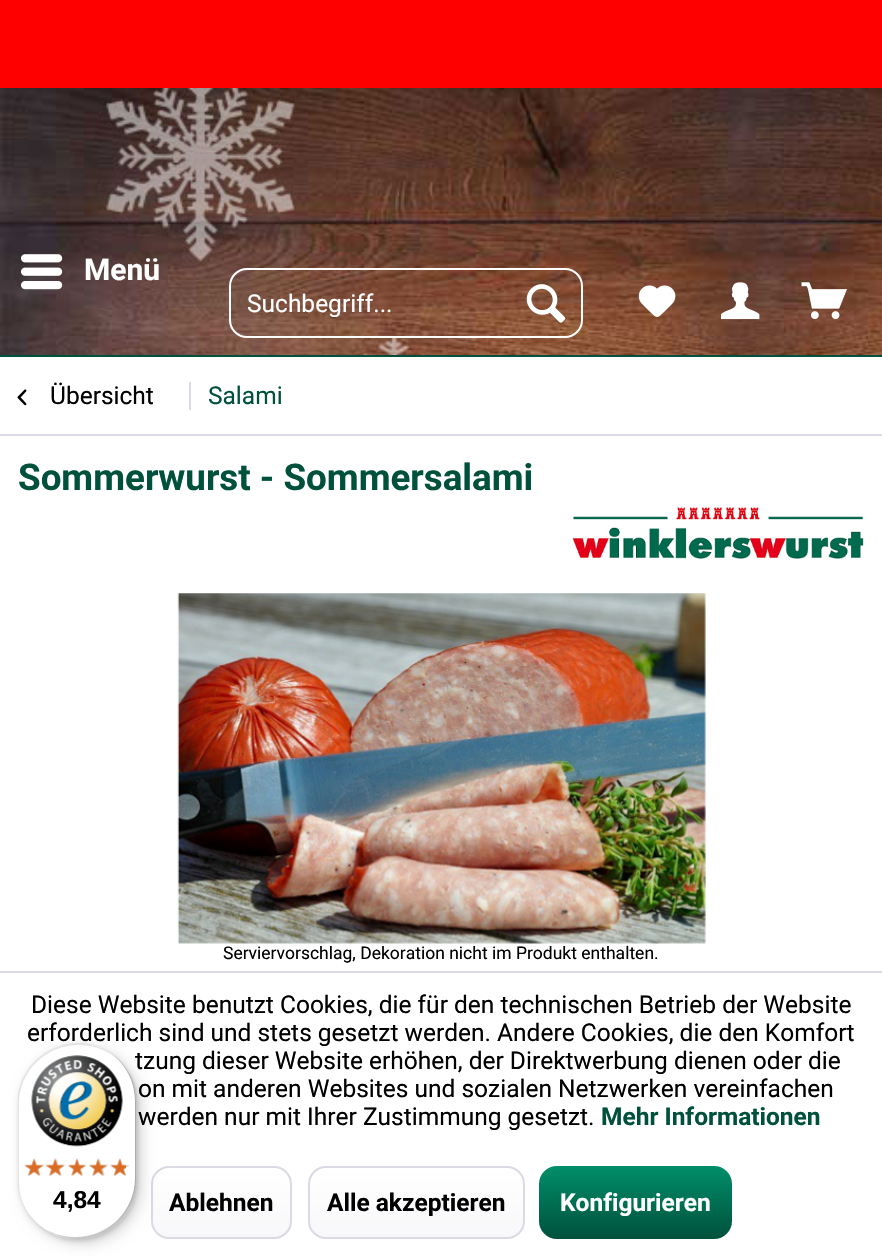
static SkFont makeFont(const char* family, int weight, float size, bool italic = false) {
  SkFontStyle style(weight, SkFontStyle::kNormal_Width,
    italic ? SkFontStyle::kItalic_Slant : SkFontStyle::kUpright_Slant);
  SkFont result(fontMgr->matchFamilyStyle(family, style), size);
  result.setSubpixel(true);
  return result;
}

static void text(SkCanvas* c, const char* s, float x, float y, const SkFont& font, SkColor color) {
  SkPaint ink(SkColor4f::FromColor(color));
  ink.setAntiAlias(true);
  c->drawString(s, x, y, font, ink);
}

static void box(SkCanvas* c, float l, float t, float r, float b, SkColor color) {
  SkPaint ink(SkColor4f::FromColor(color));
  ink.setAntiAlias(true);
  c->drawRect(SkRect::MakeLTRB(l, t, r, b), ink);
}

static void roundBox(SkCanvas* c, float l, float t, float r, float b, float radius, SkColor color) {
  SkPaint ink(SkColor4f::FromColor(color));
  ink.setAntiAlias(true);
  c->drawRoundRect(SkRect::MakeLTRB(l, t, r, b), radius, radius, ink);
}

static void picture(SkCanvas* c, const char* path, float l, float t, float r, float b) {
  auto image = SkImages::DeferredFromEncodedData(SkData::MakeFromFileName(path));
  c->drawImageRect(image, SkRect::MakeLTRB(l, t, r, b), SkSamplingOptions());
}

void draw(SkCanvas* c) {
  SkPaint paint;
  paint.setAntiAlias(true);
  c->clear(0xffffffff);
  picture(c, "img_01.png", 0, 88, 882, 355);
  box(c, 0, 355, 882, 357, 0xff00513c);
  box(c, 0, 0, 882, 88, 0xffff0000);
  picture(c, "img_02.png", 21, 254, 63, 290);
  SkFont face1 = makeFont("Roboto", 700, 30);
  text(c, "Menü", 84, 280, face1, 0xffffffff);
  paint.setStyle(SkPaint::kStroke_Style);
  paint.setStrokeWidth(2);
  paint.setColor(0xffffffff);
  c->drawRoundRect(SkRect::MakeLTRB(230, 269, 582, 337), 17, 17, paint);
  SkFont face2 = makeFont("Roboto", 400, 24.5f);
  text(c, "Suchbegriff...", 247, 312, face2, 0xffffffff);
  picture(c, "img_03.png", 526, 284, 566, 323);
  picture(c, "img_04.png", 638, 285, 676, 317);
  picture(c, "img_05.png", 721, 282, 760, 320);
  picture(c, "img_06.png", 801, 282, 847, 319);
  box(c, 0, 434, 882, 436, 0xffdadae5);
  picture(c, "img_07.png", 17, 389, 27, 406);
  text(c, "Übersicht", 50, 404, face2, 0xff000000);
  box(c, 189, 382, 191, 410, 0xffdadae5);
  text(c, "Salami", 208, 404, face2, 0xff00513c);
  SkFont face3 = makeFont("Roboto", 700, 36.75f);
  text(c, "Sommerwurst - Sommersalami", 18, 490, face3, 0xff00513c);
  picture(c, "img_08.png", 572, 507, 864, 559);
  picture(c, "img_09.png", 177, 593, 706, 944);
  SkFont face4 = makeFont("Roboto", 400, 17.5f);
  text(c, "Serviervorschlag, Dekoration nicht im Produkt enthalten.", 223, 959, face4, 0xff000000);
  box(c, 0, 971, 882, 973, 0xffdadae5);
  text(c, "Diese Website benutzt Cookies, die für den technischen Betrieb der Website", 31, 1013, face2, 0xff000000);
  text(c, "erforderlich sind und stets gesetzt werden. Andere Cookies, die den Komfort", 27, 1041, face2, 0xff000000);
  text(c, "tzung dieser Website erhöhen, der Direktwerbung dienen oder die", 135, 1069, face2, 0xff000000);
  text(c, "on mit anderen Websites und sozialen Netzwerken vereinfachen", 138, 1097, face2, 0xff000000);
  text(c, "werden nur mit Ihrer Zustimmung gesetzt.", 138, 1125, face2, 0xff000000);
  SkFont face5 = makeFont("Roboto", 700, 24.5f);
  text(c, "Mehr Informationen", 601, 1125, face5, 0xff00513c);
  paint.setStyle(SkPaint::kFill_Style);
  {
    const SkColor colors[] = {0xffffffff, 0xfff8f8fa};
    const float stops[] = {0, 1};
    const SkPoint ends[] = {{221, 1167}, {221, 1237}};
    paint.setShader(SkGradientShader::MakeLinear(ends, colors, stops, 2, SkTileMode::kClamp));
    paint.setAlpha(255);
  }
  c->drawRoundRect(SkRect::MakeLTRB(152, 1167, 291, 1237), 16, 16, paint);
  paint.setStyle(SkPaint::kStroke_Style);
  paint.setShader(nullptr);
  paint.setColor(0xffdadae5);
  c->drawRoundRect(SkRect::MakeLTRB(152, 1167, 291, 1238), 17, 17, paint);
  text(c, "Ablehnen", 169, 1211, face5, 0xff000000);
  paint.setStyle(SkPaint::kFill_Style);
  {
    const SkColor colors[] = {0xffffffff, 0xfff8f8fa};
    const float stops[] = {0, 1};
    const SkPoint ends[] = {{417, 1167}, {417, 1237}};
    paint.setShader(SkGradientShader::MakeLinear(ends, colors, stops, 2, SkTileMode::kClamp));
    paint.setAlpha(255);
  }
  c->drawRoundRect(SkRect::MakeLTRB(310, 1167, 523, 1237), 16, 16, paint);
  paint.setStyle(SkPaint::kStroke_Style);
  paint.setShader(nullptr);
  paint.setColor(0xffdadae5);
  c->drawRoundRect(SkRect::MakeLTRB(309, 1167, 524, 1238), 17, 17, paint);
  text(c, "Alle akzeptieren", 327, 1211, face5, 0xff000000);
  paint.setStyle(SkPaint::kFill_Style);
  {
    const SkColor colors[] = {0xff008e69, 0xff00513c};
    const float stops[] = {0, 1};
    const SkPoint ends[] = {{635, 1166}, {635, 1239}};
    paint.setShader(SkGradientShader::MakeLinear(ends, colors, stops, 2, SkTileMode::kClamp));
    paint.setAlpha(255);
  }
  c->drawRoundRect(SkRect::MakeLTRB(539, 1166, 732, 1239), 18, 18, paint);
  text(c, "Konfigurieren", 560, 1211, face5, 0xffffffff);
  paint.setShader(nullptr);
  paint.setColor(0x26000000);
  paint.setMaskFilter(SkMaskFilter::MakeBlur(kNormal_SkBlurStyle, 7));
  c->drawRoundRect(SkRect::MakeLTRB(23, 1048, 142, 1244), 59.5f, 59.5f, paint);
  paint.setMaskFilter(nullptr);
  paint.setMaskFilter(SkMaskFilter::MakeBlur(kNormal_SkBlurStyle, 2));
  c->drawRoundRect(SkRect::MakeLTRB(19, 1045, 138, 1241), 59.5f, 59.5f, paint);
  paint.setMaskFilter(nullptr);
  roundBox(c, 18, 1043, 137, 1239, 59.5f, 0xffffffff);
  paint.setColor(0x1a000000);
  c->drawPath(SkPathBuilder().moveTo(79, 1045).cubicTo(98, 1045, 115, 1054, 126, 1067).cubicTo(115, 1053, 97, 1043, 78, 1043).cubicTo(45, 1043, 18, 1070, 18, 1102).lineTo(18, 1180).cubicTo(18, 1192, 22, 1203, 28, 1213).cubicTo(22, 1204, 19, 1193, 19, 1181).lineTo(19, 1104).cubicTo(19, 1071, 46, 1045, 79, 1045).close().detach(), paint);
  paint.setColor(0x33000000);
  c->drawPath(SkPathBuilder().moveTo(41, 1226).cubicTo(51, 1234, 64, 1239, 78, 1239).cubicTo(110, 1239, 137, 1212, 137, 1180).lineTo(137, 1102).cubicTo(137, 1083, 128, 1067, 114, 1056).cubicTo(127, 1067, 135, 1083, 135, 1101).lineTo(135, 1178).cubicTo(135, 1211, 108, 1237, 75, 1237).cubicTo(62, 1237, 50, 1233, 41, 1226).close().detach(), paint);
  paint.setColor(0x33323232);
  c->drawPath(SkPathBuilder().moveTo(44, 1229).cubicTo(54, 1235, 65, 1239, 78, 1239).cubicTo(110, 1239, 137, 1212, 137, 1180).lineTo(137, 1102).cubicTo(137, 1080, 125, 1061, 107, 1051).cubicTo(124, 1061, 135, 1080, 135, 1101).lineTo(135, 1178).cubicTo(135, 1211, 109, 1238, 76, 1238).cubicTo(64, 1238, 53, 1235, 44, 1229).close().detach(), paint);
  paint.setColor(0x4dffffff);
  c->drawPath(SkPathBuilder().moveTo(40, 1226).cubicTo(50, 1234, 63, 1239, 78, 1239).cubicTo(110, 1239, 137, 1212, 137, 1180).lineTo(137, 1102).cubicTo(137, 1082, 126, 1064, 110, 1053).cubicTo(126, 1064, 136, 1082, 136, 1102).lineTo(136, 1179).cubicTo(136, 1211, 109, 1238, 76, 1238).cubicTo(62, 1238, 50, 1233, 40, 1226).close().detach(), paint);
  picture(c, "img_10.png", 31, 1055, 123, 1147);
  picture(c, "img_11.png", 24, 1159, 44, 1176);
  picture(c, "img_12.png", 47, 1158, 65, 1176);
  picture(c, "img_13.png", 68, 1159, 86, 1176);
  picture(c, "img_14.png", 89, 1158, 109, 1176);
  picture(c, "img_15.png", 110, 1159, 130, 1176);
  picture(c, "img_16.png", 24, 1158, 44, 1176);
  picture(c, "img_17.png", 45, 1158, 65, 1176);
  picture(c, "img_18.png", 68, 1158, 86, 1176);
  picture(c, "img_19.png", 89, 1158, 107, 1176);
  picture(c, "img_20.png", 110, 1158, 126, 1176);
  SkFont face6 = makeFont("Liberation Sans", 700, 24.5f);
  text(c, "4,84", 53, 1208, face6, 0xff000000);
}
